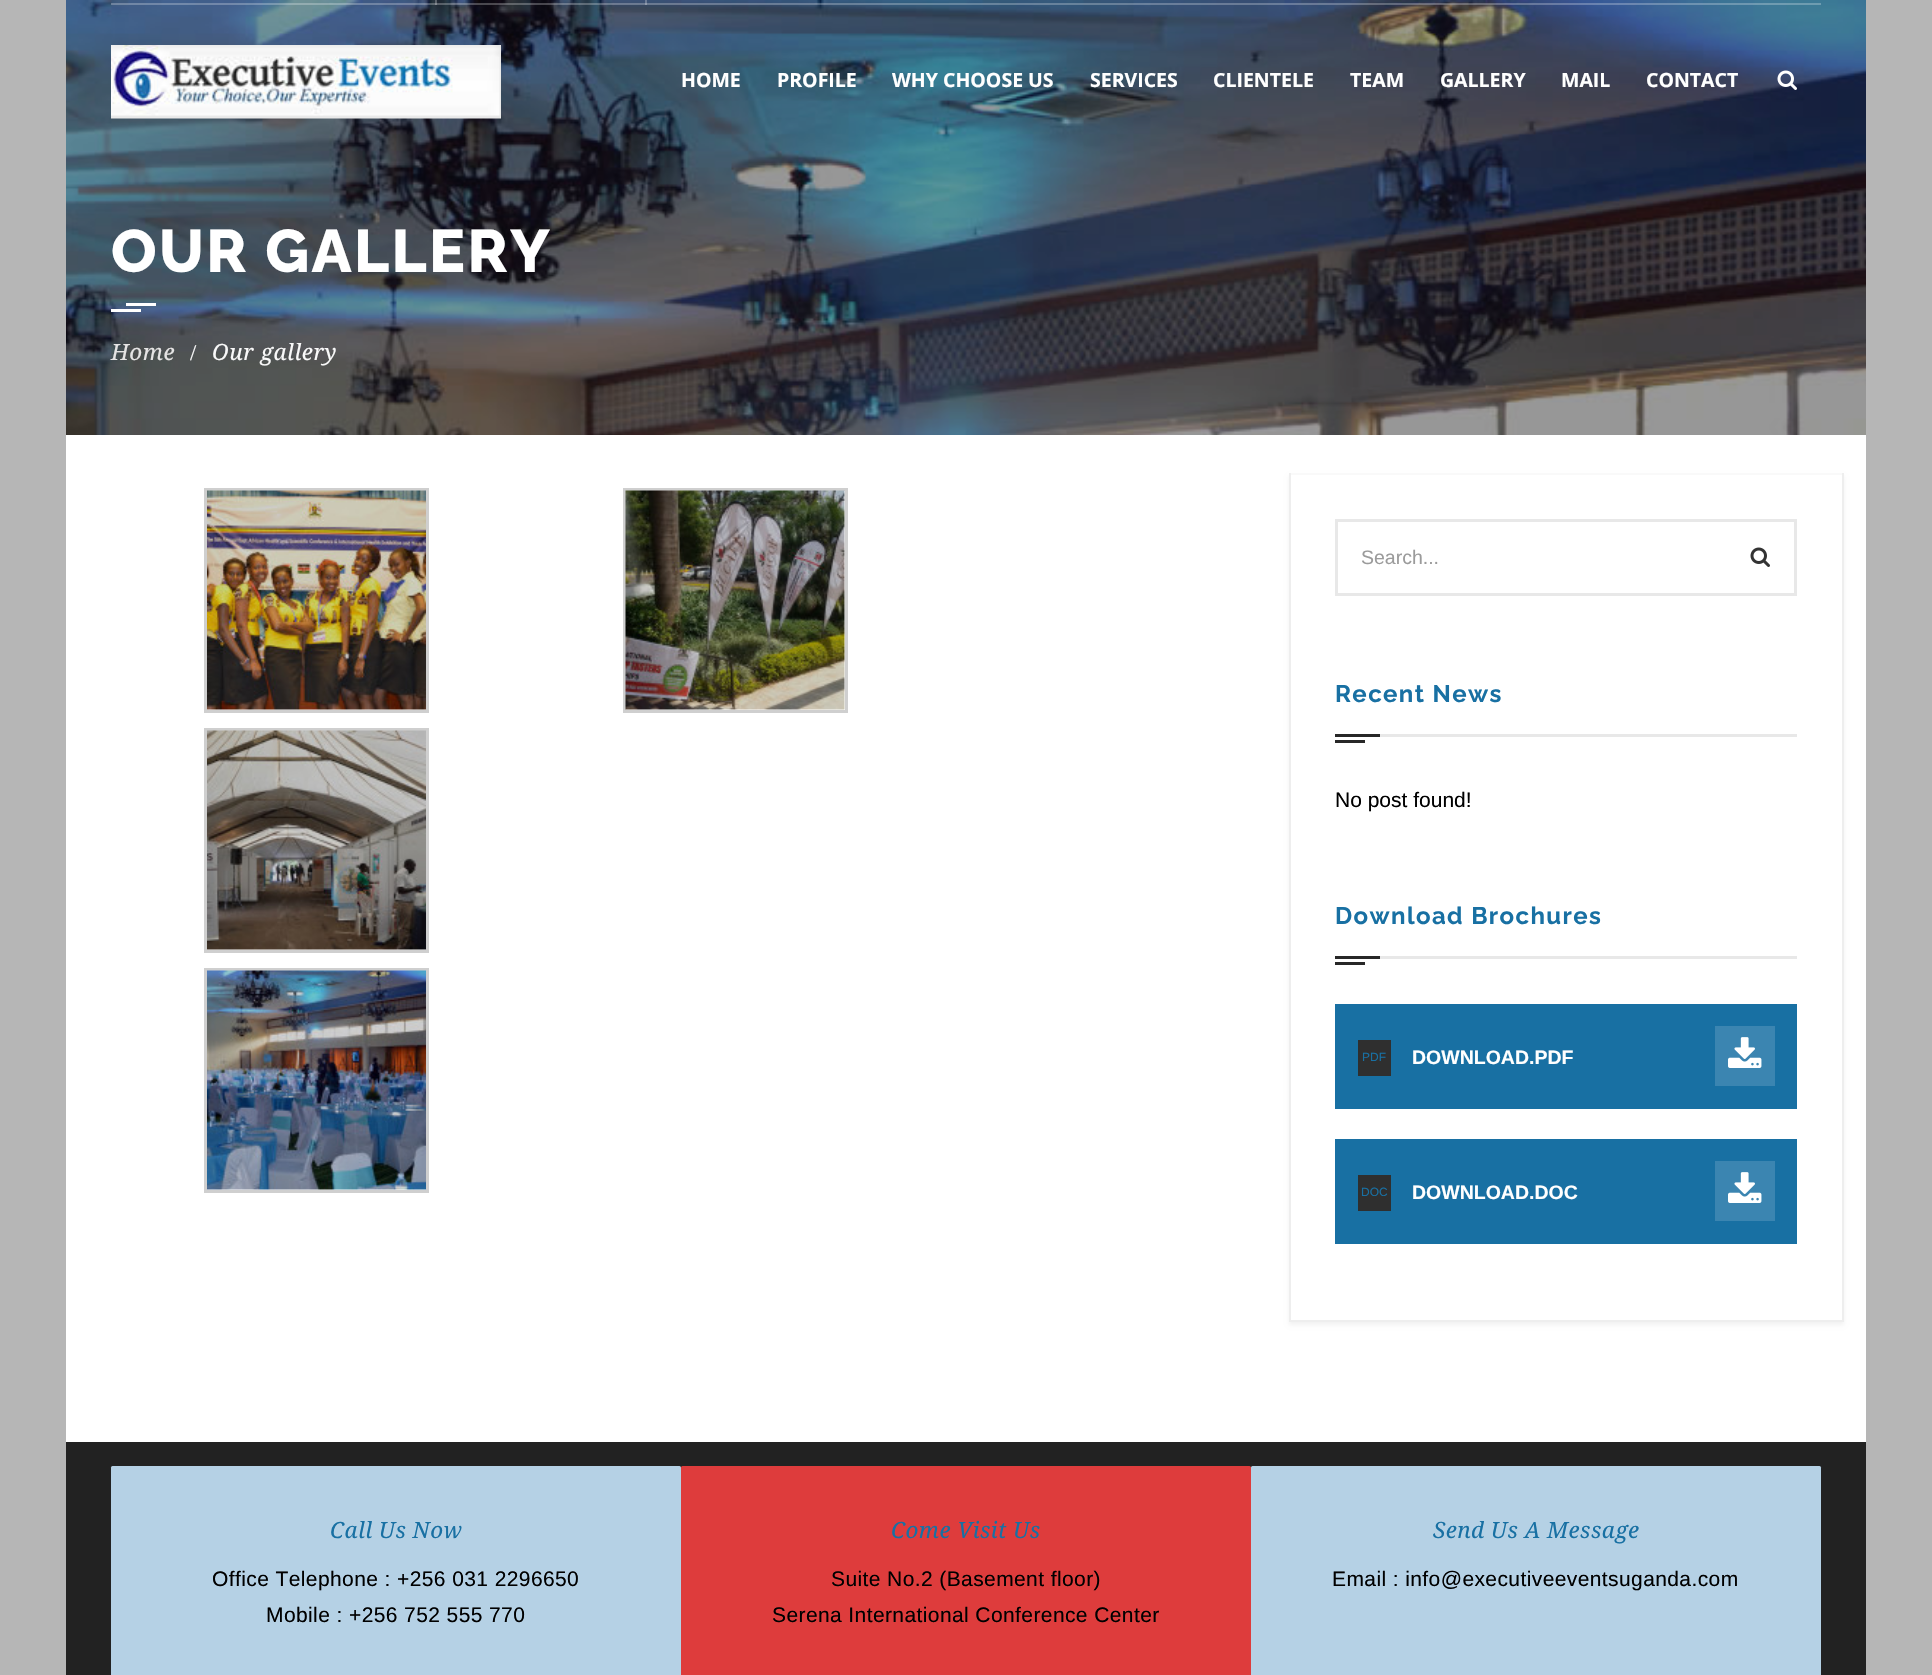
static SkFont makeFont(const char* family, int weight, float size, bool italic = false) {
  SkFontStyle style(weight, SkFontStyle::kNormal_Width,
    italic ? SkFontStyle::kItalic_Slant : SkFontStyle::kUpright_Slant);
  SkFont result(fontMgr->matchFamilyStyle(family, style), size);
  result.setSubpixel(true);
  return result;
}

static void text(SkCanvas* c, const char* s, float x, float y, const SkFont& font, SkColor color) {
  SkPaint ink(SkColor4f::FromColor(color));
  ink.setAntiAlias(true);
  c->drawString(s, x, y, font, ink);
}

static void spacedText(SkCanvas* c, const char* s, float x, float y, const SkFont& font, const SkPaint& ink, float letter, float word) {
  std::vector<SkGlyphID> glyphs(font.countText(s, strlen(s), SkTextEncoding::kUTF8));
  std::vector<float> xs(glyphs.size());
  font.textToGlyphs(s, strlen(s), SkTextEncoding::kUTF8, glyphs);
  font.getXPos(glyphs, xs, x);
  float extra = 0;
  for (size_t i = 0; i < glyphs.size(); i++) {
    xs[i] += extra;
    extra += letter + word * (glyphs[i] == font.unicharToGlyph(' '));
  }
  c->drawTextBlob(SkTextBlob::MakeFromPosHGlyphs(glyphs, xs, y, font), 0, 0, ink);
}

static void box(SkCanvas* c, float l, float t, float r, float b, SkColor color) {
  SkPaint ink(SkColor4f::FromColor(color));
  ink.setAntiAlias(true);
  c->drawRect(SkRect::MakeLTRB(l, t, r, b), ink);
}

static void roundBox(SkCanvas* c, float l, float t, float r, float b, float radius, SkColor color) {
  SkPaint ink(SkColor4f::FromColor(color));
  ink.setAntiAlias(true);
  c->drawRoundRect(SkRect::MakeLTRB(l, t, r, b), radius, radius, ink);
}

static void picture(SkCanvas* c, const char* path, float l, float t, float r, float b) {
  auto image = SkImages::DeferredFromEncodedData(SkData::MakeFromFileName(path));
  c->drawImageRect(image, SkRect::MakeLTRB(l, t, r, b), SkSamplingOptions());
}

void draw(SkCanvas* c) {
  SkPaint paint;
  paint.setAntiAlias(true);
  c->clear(0xffb6b6b6);
  box(c, 66, 435, 1866, 1442, 0xffffffff);
  picture(c, "img_03.png", 66, 0, 1866, 435);
  box(c, 111, 3, 1821, 5, 0x40ffffff);
  box(c, 435, 0, 437, 5, 0x40ffffff);
  box(c, 645, 0, 647, 5, 0x40ffffff);
  picture(c, "img_01.png", 111, 45, 501, 119);
  SkFont face1 = makeFont("Open Sans", 700, 19.5f);
  text(c, "HOME", 681, 87, face1, 0xffffffff);
  text(c, "PROFILE", 777, 87, face1, 0xffffffff);
  text(c, "WHY CHOOSE US", 892, 87, face1, 0xffffffff);
  text(c, "SERVICES", 1090, 87, face1, 0xffffffff);
  text(c, "CLIENTELE", 1213, 87, face1, 0xffffffff);
  text(c, "TEAM", 1350, 87, face1, 0xffffffff);
  text(c, "GALLERY", 1440, 87, face1, 0xffffffff);
  text(c, "MAIL", 1561, 87, face1, 0xffffffff);
  text(c, "CONTACT", 1646, 87, face1, 0xffffffff);
  picture(c, "img_02.png", 1777, 70, 1797, 90);
  SkFont face2 = makeFont("Raleway", 800, 60);
  paint.setColor(0xffffffff);
  spacedText(c, "OUR GALLERY", 111, 272, face2, paint, 2.4f, 0);
  box(c, 126, 303, 156, 306, 0xffffffff);
  box(c, 111, 309, 141, 312, 0xffffffff);
  SkFont face3 = makeFont("Droid Serif", 400, 22.5f, true);
  paint.setColor(0xffe5e4e4);
  spacedText(c, "Home", 111, 360, face3, paint, 0.5f, 0);
  SkFont face4 = makeFont("Liberation Serif", 400, 22.5f);
  paint.setColor(0xfff9f9f9);
  spacedText(c, "/", 190, 360, face4, paint, 0.5f, 0);
  spacedText(c, "Our gallery", 212, 360, face3, paint, 0.5f, 0);
  paint.setStyle(SkPaint::kStroke_Style);
  paint.setStrokeWidth(3);
  paint.setColor(0xffcfcfcf);
  c->drawRect(SkRect::MakeLTRB(205.5f, 489.5f, 427.5f, 711.5f), paint);
  picture(c, "img_04.png", 207, 490, 426, 710);
  c->drawRect(SkRect::MakeLTRB(624.5f, 489.5f, 846.5f, 711.5f), paint);
  picture(c, "img_05.png", 625, 490, 845, 710);
  c->drawRect(SkRect::MakeLTRB(205.5f, 729.5f, 427.5f, 951.5f), paint);
  picture(c, "img_06.png", 207, 730, 426, 950);
  c->drawRect(SkRect::MakeLTRB(205.5f, 969.5f, 427.5f, 1191.5f), paint);
  picture(c, "img_07.png", 207, 970, 426, 1190);
  paint.setStyle(SkPaint::kFill_Style);
  paint.setColor(0x0d000000);
  paint.setMaskFilter(SkMaskFilter::MakeBlur(kNormal_SkBlurStyle, 2));
  c->drawRect(SkRect::MakeLTRB(1289, 476, 1844, 1325), paint);
  paint.setMaskFilter(nullptr);
  box(c, 1291, 475, 1842, 1320, 0xffffffff);
  box(c, 1289, 473, 1844, 475, 0xfff9f9f9);
  box(c, 1842, 473, 1844, 1322, 0xffeeeeee);
  box(c, 1289, 1320, 1844, 1322, 0xffeeeeee);
  box(c, 1289, 473, 1291, 1322, 0xffeeeeee);
  paint.setStyle(SkPaint::kStroke_Style);
  paint.setColor(0xffe8e8e8);
  c->drawRect(SkRect::MakeLTRB(1336.5f, 520.5f, 1795.5f, 594.5f), paint);
  SkFont face5 = makeFont("Liberation Sans", 400, 19.5f);
  text(c, "Search...", 1361, 564, face5, 0xff9b9b9b);
  picture(c, "img_08.png", 1750, 547, 1770, 567);
  box(c, 1380, 734, 1797, 737, 0xffe8e8e8);
  SkFont face6 = makeFont("Raleway", 700, 24);
  paint.setStyle(SkPaint::kFill_Style);
  paint.setColor(0xff1870a3);
  spacedText(c, "Recent News", 1335, 702, face6, paint, 1.4f, 0);
  box(c, 1335, 734, 1380, 737, 0xff282828);
  box(c, 1335, 740, 1365, 743, 0xff282828);
  SkFont face7 = makeFont("Liberation Sans", 400, 21);
  text(c, "No post found!", 1335, 807, face7, 0xff000000);
  box(c, 1380, 956, 1797, 959, 0xffe8e8e8);
  spacedText(c, "Download Brochures", 1335, 924, face6, paint, 1.4f, 0);
  box(c, 1335, 956, 1380, 959, 0xff282828);
  box(c, 1335, 962, 1365, 965, 0xff282828);
  box(c, 1335, 1004, 1797, 1109, 0xff1870a3);
  box(c, 1358, 1040, 1391, 1076, 0xff2f2f2f);
  SkFont face8 = makeFont("Liberation Sans", 400, 12);
  text(c, "PDF", 1362, 1061, face8, 0xff1870a3);
  SkFont face9 = makeFont("Liberation Sans", 700, 19.5f);
  text(c, "DOWNLOAD.PDF", 1412, 1064, face9, 0xffffffff);
  box(c, 1715, 1026, 1775, 1086, 0xff3b85b1);
  picture(c, "img_09.png", 1728, 1037, 1762, 1068);
  box(c, 1335, 1139, 1797, 1244, 0xff1870a3);
  box(c, 1358, 1175, 1391, 1211, 0xff2f2f2f);
  text(c, "DOC", 1361, 1196, face8, 0xff1870a3);
  text(c, "DOWNLOAD.DOC", 1412, 1199, face9, 0xffffffff);
  box(c, 1715, 1161, 1775, 1221, 0xff3b85b1);
  picture(c, "img_09.png", 1728, 1172, 1762, 1203);
  box(c, 66, 1442, 1866, 1675, 0xff222222);
  roundBox(c, 111, 1466, 681, 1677, 1.5f, 0xffb5d1e5);
  spacedText(c, "Call Us Now", 330, 1538, face3, paint, 0.4f, 0);
  paint.setColor(0xff000000);
  spacedText(c, "Office Telephone : +256 031 2296650", 212, 1586, face7, paint, 0.4f, 0);
  spacedText(c, "Mobile : +256 752 555 770", 266, 1622, face7, paint, 0.4f, 0);
  roundBox(c, 681, 1466, 1251, 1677, 1.5f, 0xffde3c3c);
  paint.setColor(0xff1870a3);
  spacedText(c, "Come Visit Us", 891, 1538, face3, paint, 0.4f, 0);
  paint.setColor(0xff000000);
  spacedText(c, "Suite No.2 (Basement floor)", 831, 1586, face7, paint, 0.4f, 0);
  spacedText(c, "Serena International Conference Center", 772, 1622, face7, paint, 0.4f, 0);
  roundBox(c, 1251, 1466, 1821, 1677, 1.5f, 0xffb5d1e5);
  paint.setColor(0xff1870a3);
  spacedText(c, "Send Us A Message", 1433, 1538, face3, paint, 0.4f, 0);
  paint.setColor(0xff000000);
  spacedText(c, "Email : info@executiveeventsuganda.com", 1332, 1586, face7, paint, 0.4f, 0);
}
